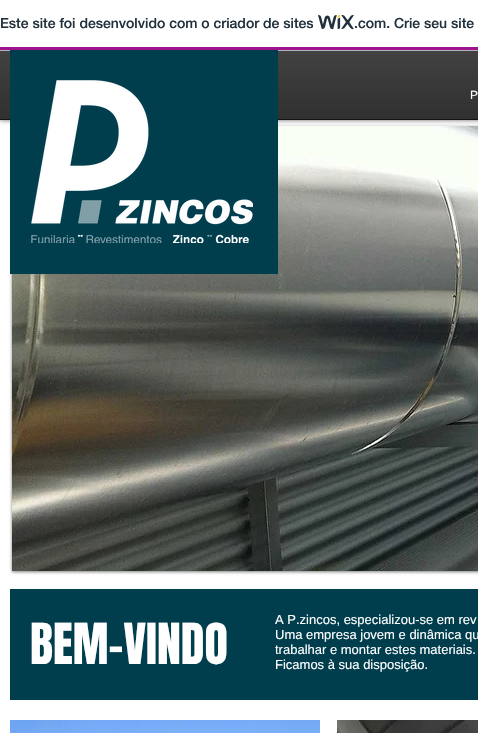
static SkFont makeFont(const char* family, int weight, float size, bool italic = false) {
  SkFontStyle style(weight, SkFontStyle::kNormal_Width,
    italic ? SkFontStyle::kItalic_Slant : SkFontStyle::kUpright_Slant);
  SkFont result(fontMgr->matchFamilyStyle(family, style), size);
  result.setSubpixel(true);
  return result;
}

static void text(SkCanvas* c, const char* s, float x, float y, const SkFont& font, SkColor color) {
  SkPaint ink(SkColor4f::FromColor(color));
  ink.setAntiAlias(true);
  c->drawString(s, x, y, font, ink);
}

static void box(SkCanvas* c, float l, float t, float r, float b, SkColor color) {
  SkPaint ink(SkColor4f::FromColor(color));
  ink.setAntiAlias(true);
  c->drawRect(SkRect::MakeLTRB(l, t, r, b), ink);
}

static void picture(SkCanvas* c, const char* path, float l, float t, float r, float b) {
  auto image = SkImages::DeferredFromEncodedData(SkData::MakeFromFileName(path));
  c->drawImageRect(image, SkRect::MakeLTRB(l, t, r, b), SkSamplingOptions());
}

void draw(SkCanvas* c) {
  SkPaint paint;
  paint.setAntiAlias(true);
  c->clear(0xffffffff);
  paint.setColor(0x99000000);
  paint.setMaskFilter(SkMaskFilter::MakeBlur(kNormal_SkBlurStyle, 2.5f));
  c->drawRect(SkRect::MakeLTRB(0, 50, 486, 120), paint);
  paint.setMaskFilter(nullptr);
  box(c, 0, 45, 478, 47, 0xffffffff);
  box(c, 0, 47, 478, 50, 0xffa0138e);
  SkFont face1 = makeFont("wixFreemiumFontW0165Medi", 500, 14);
  text(c, "Este site foi desenvolvido com o criador de sites", 0, 28, face1, 0xff20303c);
  picture(c, "img_01.png", 318, 15, 354, 30);
  text(c, ".com. Crie seu site", 354, 28, face1, 0xff20303c);
  box(c, 0, 51, 478, 119, 0xff000000);
  picture(c, "img_03.png", 0, 51, 478, 119);
  box(c, 0, 119, 478, 120, 0xff131313);
  box(c, 0, 50, 478, 51, 0xffb3b3b3);
  paint.setColor(0x80000000);
  paint.setMaskFilter(SkMaskFilter::MakeBlur(kNormal_SkBlurStyle, 1.5f));
  c->drawRect(SkRect::MakeLTRB(12, 127, 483, 572), paint);
  paint.setMaskFilter(nullptr);
  picture(c, "img_04.png", 12, 126, 478, 571);
  box(c, 10, 50, 278, 274, 0xff003d4d);
  picture(c, "img_02.png", 31, 80, 253, 243);
  SkFont face2 = makeFont("Liberation Sans", 400, 12);
  text(c, "P", 470, 99, face2, 0xffffffff);
  box(c, 10, 589, 478, 700, 0xff003d4d);
  SkFont face3 = makeFont("Anton", 400, 48);
  text(c, "BEM-VINDO", 30, 664, face3, 0xffffffff);
  SkFont face4 = makeFont("Liberation Sans", 400, 13);
  text(c, "A P.zincos, especializou-se em rev", 275, 624, face4, 0xffffffff);
  text(c, "Uma empresa jovem e dinâmica qu", 275, 639, face4, 0xffffffff);
  text(c, "trabalhar e montar estes materiais.", 275, 654, face4, 0xffffffff);
  text(c, "Ficamos à sua disposição.", 275, 669, face4, 0xffffffff);
  picture(c, "img_05.png", 10, 720, 320, 733);
  picture(c, "img_06.png", 337, 720, 478, 733);
}
